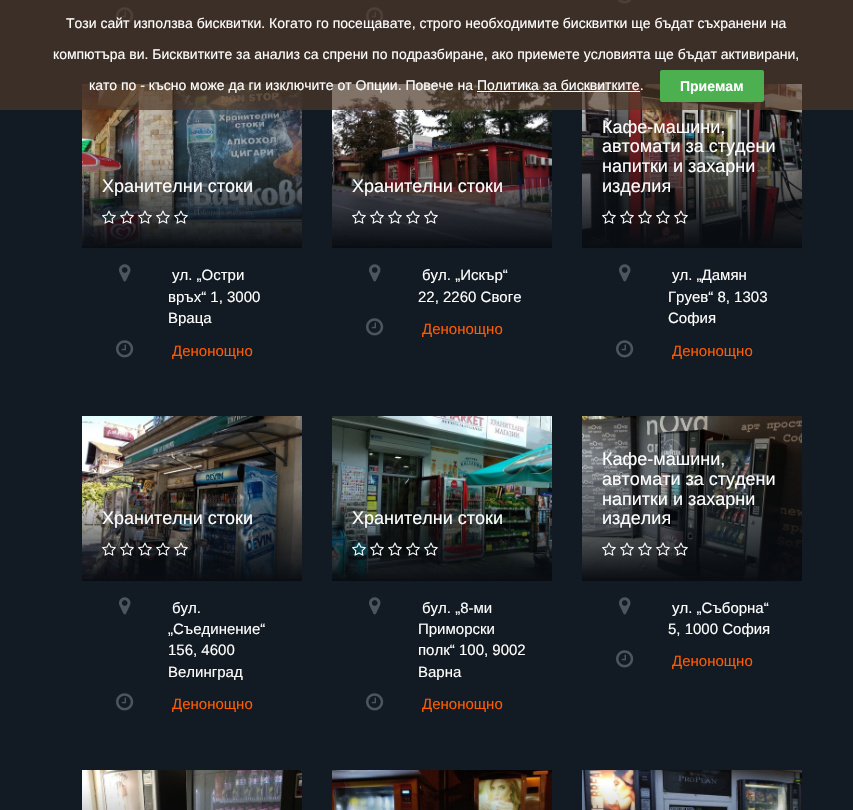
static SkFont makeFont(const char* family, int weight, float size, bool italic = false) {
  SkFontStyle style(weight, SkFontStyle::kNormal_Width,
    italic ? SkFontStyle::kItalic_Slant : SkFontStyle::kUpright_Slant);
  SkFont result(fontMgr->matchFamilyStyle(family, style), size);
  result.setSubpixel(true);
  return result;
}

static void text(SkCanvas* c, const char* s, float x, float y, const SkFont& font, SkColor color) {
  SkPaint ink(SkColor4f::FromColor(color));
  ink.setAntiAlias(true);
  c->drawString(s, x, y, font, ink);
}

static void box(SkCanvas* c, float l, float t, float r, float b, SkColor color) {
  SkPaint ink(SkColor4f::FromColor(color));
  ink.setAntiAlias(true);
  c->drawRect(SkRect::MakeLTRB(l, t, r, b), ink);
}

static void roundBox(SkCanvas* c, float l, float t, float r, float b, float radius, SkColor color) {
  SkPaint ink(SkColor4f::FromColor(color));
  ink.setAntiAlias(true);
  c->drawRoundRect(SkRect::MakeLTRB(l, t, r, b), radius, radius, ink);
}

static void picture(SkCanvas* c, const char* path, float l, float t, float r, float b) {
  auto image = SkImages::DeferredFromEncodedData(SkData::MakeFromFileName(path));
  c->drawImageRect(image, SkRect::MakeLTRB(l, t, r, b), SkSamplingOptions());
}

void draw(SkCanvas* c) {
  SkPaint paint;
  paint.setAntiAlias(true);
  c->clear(0xff121a23);
  picture(c, "img_01.png", 618, 0, 632, 4);
  picture(c, "img_02.png", 116, 7, 134, 25);
  picture(c, "img_02.png", 366, 7, 384, 25);
  picture(c, "img_03.png", 82, 84, 302, 248);
  picture(c, "img_10.png", 332, 84, 552, 248);
  picture(c, "img_16.png", 582, 84, 802, 248);
  box(c, 0, 0, 853, 110, 0xb34d3828);
  SkFont face1 = makeFont("Liberation Sans", 400, 14);
  text(c, "Този сайт използва бисквитки. Когато го посещавате, строго необходимите бисквитки ще бъдат съхранени на", 66, 28, face1, 0xffffffff);
  text(c, "компютъра ви. Бисквитките за анализ са спрени по подразбиране, ако приемете условията ще бъдат активирани,", 53, 59, face1, 0xffffffff);
  text(c, "като по - късно може да ги изключите от Опции. Повече на Политика за бисквитките.", 89, 90, face1, 0xffffffff);
  roundBox(c, 660, 70, 764, 102, 2, 0xff4caf50);
  SkFont face2 = makeFont("Liberation Sans", 700, 14);
  text(c, "Приемам", 680, 91, face2, 0xffffffff);
  box(c, 477, 91, 640, 92, 0xffffffff);
  SkFont face3 = makeFont("Liberation Sans", 400, 18);
  text(c, "Хранителни стоки", 102, 192, face3, 0xffffffff);
  picture(c, "img_04.png", 102, 210, 116, 224);
  picture(c, "img_05.png", 120, 210, 134, 224);
  picture(c, "img_06.png", 138, 210, 152, 224);
  picture(c, "img_07.png", 156, 210, 170, 224);
  picture(c, "img_08.png", 174, 210, 188, 224);
  picture(c, "img_09.png", 119, 264, 131, 282);
  SkFont face4 = makeFont("Liberation Sans", 400, 15);
  text(c, "ул. „Остри", 172, 280, face4, 0xffffffff);
  text(c, "връх“ 1, 3000", 168, 302, face4, 0xffffffff);
  text(c, "Враца", 168, 323, face4, 0xffffffff);
  picture(c, "img_02.png", 116, 340, 134, 358);
  text(c, "Денонощно", 172, 356, face4, 0xffff5b00);
  text(c, "Хранителни стоки", 352, 192, face3, 0xffffffff);
  picture(c, "img_11.png", 352, 210, 366, 224);
  picture(c, "img_12.png", 370, 210, 384, 224);
  picture(c, "img_13.png", 388, 210, 402, 224);
  picture(c, "img_14.png", 406, 210, 420, 224);
  picture(c, "img_15.png", 424, 210, 438, 224);
  picture(c, "img_09.png", 369, 264, 381, 282);
  text(c, "бул. „Искър“", 422, 280, face4, 0xffffffff);
  text(c, "22, 2260 Своге", 418, 302, face4, 0xffffffff);
  picture(c, "img_02.png", 366, 318, 384, 336);
  text(c, "Денонощно", 422, 334, face4, 0xffff5b00);
  text(c, "Кафе-машини,", 602, 133, face3, 0xffffffff);
  text(c, "автомати за студени", 602, 152, face3, 0xffffffff);
  text(c, "напитки и захарни", 602, 172, face3, 0xffffffff);
  text(c, "изделия", 602, 192, face3, 0xffffffff);
  picture(c, "img_17.png", 602, 210, 616, 224);
  picture(c, "img_18.png", 620, 210, 634, 224);
  picture(c, "img_19.png", 638, 210, 652, 224);
  picture(c, "img_20.png", 656, 210, 670, 224);
  picture(c, "img_21.png", 674, 210, 688, 224);
  picture(c, "img_09.png", 619, 264, 631, 282);
  text(c, "ул. „Дамян", 672, 280, face4, 0xffffffff);
  text(c, "Груев“ 8, 1303", 668, 302, face4, 0xffffffff);
  text(c, "София", 668, 323, face4, 0xffffffff);
  picture(c, "img_02.png", 616, 340, 634, 358);
  text(c, "Денонощно", 672, 356, face4, 0xffff5b00);
  picture(c, "img_22.png", 82, 416, 302, 581);
  text(c, "Хранителни стоки", 102, 524, face3, 0xffffffff);
  picture(c, "img_23.png", 102, 542, 116, 556);
  picture(c, "img_24.png", 120, 542, 134, 556);
  picture(c, "img_25.png", 138, 542, 152, 556);
  picture(c, "img_26.png", 156, 542, 170, 556);
  picture(c, "img_27.png", 174, 542, 188, 556);
  picture(c, "img_09.png", 119, 597, 131, 615);
  text(c, "бул.", 172, 613, face4, 0xffffffff);
  text(c, "„Съединение“", 168, 634, face4, 0xffffffff);
  text(c, "156, 4600", 168, 655, face4, 0xffffffff);
  text(c, "Велинград", 168, 677, face4, 0xffffffff);
  picture(c, "img_02.png", 116, 693, 134, 711);
  text(c, "Денонощно", 172, 709, face4, 0xffff5b00);
  picture(c, "img_28.png", 332, 416, 552, 581);
  text(c, "Хранителни стоки", 352, 524, face3, 0xffffffff);
  picture(c, "img_29.png", 352, 542, 366, 556);
  picture(c, "img_30.png", 370, 542, 384, 556);
  picture(c, "img_31.png", 388, 542, 402, 556);
  picture(c, "img_32.png", 406, 542, 420, 556);
  picture(c, "img_33.png", 424, 542, 438, 556);
  picture(c, "img_09.png", 369, 597, 381, 615);
  text(c, "бул. „8-ми", 422, 613, face4, 0xffffffff);
  text(c, "Приморски", 418, 634, face4, 0xffffffff);
  text(c, "полк“ 100, 9002", 418, 655, face4, 0xffffffff);
  text(c, "Варна", 418, 677, face4, 0xffffffff);
  picture(c, "img_02.png", 366, 693, 384, 711);
  text(c, "Денонощно", 422, 709, face4, 0xffff5b00);
  picture(c, "img_34.png", 582, 416, 802, 581);
  text(c, "Кафе-машини,", 602, 465, face3, 0xffffffff);
  text(c, "автомати за студени", 602, 485, face3, 0xffffffff);
  text(c, "напитки и захарни", 602, 505, face3, 0xffffffff);
  text(c, "изделия", 602, 524, face3, 0xffffffff);
  picture(c, "img_35.png", 602, 542, 616, 556);
  picture(c, "img_36.png", 620, 542, 634, 556);
  picture(c, "img_37.png", 638, 542, 652, 556);
  picture(c, "img_38.png", 656, 542, 670, 556);
  picture(c, "img_39.png", 674, 542, 688, 556);
  picture(c, "img_09.png", 619, 597, 631, 615);
  text(c, "ул. „Съборна“", 672, 613, face4, 0xffffffff);
  text(c, "5, 1000 София", 668, 634, face4, 0xffffffff);
  picture(c, "img_02.png", 616, 650, 634, 668);
  text(c, "Денонощно", 672, 666, face4, 0xffff5b00);
  picture(c, "img_40.png", 82, 770, 302, 810);
  picture(c, "img_41.png", 332, 770, 552, 810);
  picture(c, "img_42.png", 582, 770, 802, 810);
}
